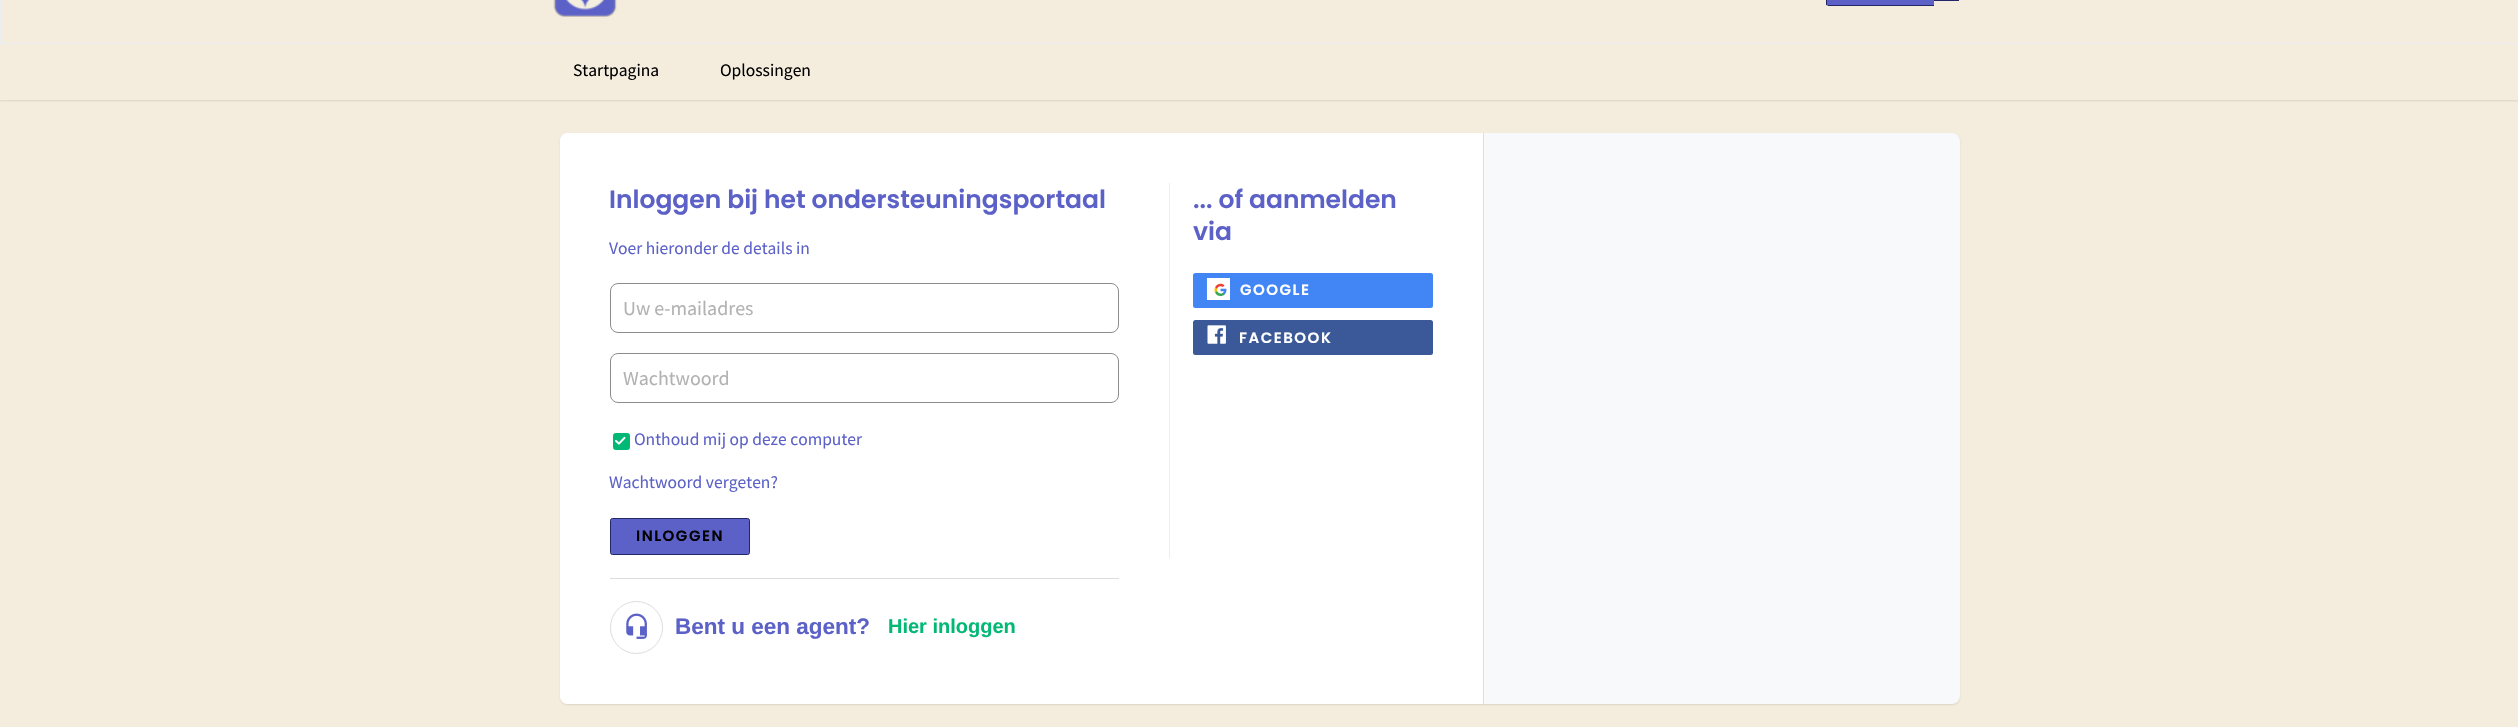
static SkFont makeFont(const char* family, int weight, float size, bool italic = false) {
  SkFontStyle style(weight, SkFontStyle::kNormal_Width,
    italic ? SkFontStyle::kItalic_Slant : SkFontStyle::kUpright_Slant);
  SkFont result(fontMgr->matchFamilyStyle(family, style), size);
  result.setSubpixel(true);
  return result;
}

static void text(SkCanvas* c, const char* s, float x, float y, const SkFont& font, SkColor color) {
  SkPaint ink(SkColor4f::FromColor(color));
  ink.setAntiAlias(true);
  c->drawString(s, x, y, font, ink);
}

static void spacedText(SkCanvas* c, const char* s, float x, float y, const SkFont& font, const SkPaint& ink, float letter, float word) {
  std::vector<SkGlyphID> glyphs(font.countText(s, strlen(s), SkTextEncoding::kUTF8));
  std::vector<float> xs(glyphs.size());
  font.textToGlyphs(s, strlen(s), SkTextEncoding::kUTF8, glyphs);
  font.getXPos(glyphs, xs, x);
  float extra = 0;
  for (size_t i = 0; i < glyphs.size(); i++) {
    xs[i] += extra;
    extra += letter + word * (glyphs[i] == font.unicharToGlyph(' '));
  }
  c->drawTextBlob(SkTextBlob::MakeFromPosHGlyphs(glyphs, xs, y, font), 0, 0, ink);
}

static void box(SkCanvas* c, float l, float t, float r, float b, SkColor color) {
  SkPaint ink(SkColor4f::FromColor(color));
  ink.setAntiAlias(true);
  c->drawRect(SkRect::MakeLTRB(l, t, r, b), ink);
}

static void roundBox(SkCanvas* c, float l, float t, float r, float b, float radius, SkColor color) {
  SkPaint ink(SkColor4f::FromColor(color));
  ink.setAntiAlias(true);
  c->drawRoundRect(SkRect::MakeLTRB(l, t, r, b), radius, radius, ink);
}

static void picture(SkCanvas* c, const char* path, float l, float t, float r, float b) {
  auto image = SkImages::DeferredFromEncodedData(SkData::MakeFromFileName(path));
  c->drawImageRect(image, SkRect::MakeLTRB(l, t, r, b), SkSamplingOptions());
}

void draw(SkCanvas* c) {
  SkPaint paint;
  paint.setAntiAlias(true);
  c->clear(0xfff4edde);
  paint.setStyle(SkPaint::kStroke_Style);
  paint.setStrokeWidth(1);
  paint.setColor(0xffebeef0);
  c->drawRect(SkRect::MakeLTRB(0.5f, -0.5f, 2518.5f, 43.5f), paint);
  picture(c, "img_01.png", 553, 0, 617, 17);
  paint.setStyle(SkPaint::kFill_Style);
  paint.setColor(0xff5c61c7);
  c->drawPath(SkPathBuilder().moveTo(1828.5f, -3).lineTo(1934, -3).lineTo(1934, 6).lineTo(1828.5f, 6).cubicTo(1827, 6, 1826, 5, 1826, 3.5f).lineTo(1826, -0.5f).cubicTo(1826, -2, 1827, -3, 1828.5f, -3).close().detach(), paint);
  box(c, 1826, 0, 1827, 5, 0xff232667);
  box(c, 1934, 0, 1959, 1, 0xff232667);
  box(c, 1828, 5, 1934, 6, 0xff232667);
  c->save();
  c->clipRect(SkRect::MakeLTRB(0, 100, 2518, 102));
  paint.setColor(0x263f3f44);
  paint.setMaskFilter(SkMaskFilter::MakeBlur(kNormal_SkBlurStyle, 1));
  c->drawRect(SkRect::MakeLTRB(0, 45, 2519, 101), paint);
  paint.setMaskFilter(nullptr);
  c->restore();
  SkFont face1 = makeFont("Source Sans Pro", 400, 17.5f);
  text(c, "Startpagina", 573, 76, face1, 0xff000000);
  text(c, "Oplossingen", 720, 76, face1, 0xff000000);
  paint.setMaskFilter(SkMaskFilter::MakeBlur(kNormal_SkBlurStyle, 1));
  c->drawRoundRect(SkRect::MakeLTRB(560, 134, 1960, 705), 8, 8, paint);
  paint.setMaskFilter(nullptr);
  roundBox(c, 560, 133, 1960, 704, 8, 0xfff8f9fa);
  paint.setColor(0xffffffff);
  c->drawPath(SkPathBuilder().moveTo(568, 133).lineTo(1484, 133).lineTo(1484, 704).lineTo(568, 704).cubicTo(563.5f, 704, 560, 700.5f, 560, 696).lineTo(560, 141).cubicTo(560, 136.5f, 563.5f, 133, 568, 133).close().detach(), paint);
  box(c, 1483, 133, 1484, 704, 0xffdadfe3);
  SkFont face2 = makeFont("Poppins", 600, 25);
  text(c, "Inloggen bij het ondersteuningsportaal", 609, 208, face2, 0xff5c61c7);
  text(c, "Voer hieronder de details in", 609, 254, face1, 0xff5c61c7);
  paint.setStyle(SkPaint::kStroke_Style);
  paint.setColor(0xff8c8c8c);
  c->drawRoundRect(SkRect::MakeLTRB(610.5f, 283.5f, 1118.5f, 332.5f), 7.5f, 7.5f, paint);
  SkFont face3 = makeFont("Source Sans Pro", 400, 20);
  text(c, "Uw e-mailadres", 623, 315, face3, 0xffb2b2b2);
  c->drawRoundRect(SkRect::MakeLTRB(610.5f, 353.5f, 1118.5f, 402.5f), 7.5f, 7.5f, paint);
  text(c, "Wachtwoord", 623, 385, face3, 0xffb2b2b2);
  paint.setStyle(SkPaint::kFill_Style);
  paint.setColor(0xff02b875);
  c->drawRoundRect(SkRect::MakeLTRB(613.5f, 433.5f, 629.5f, 449.5f), 2, 2, paint);
  paint.setStyle(SkPaint::kStroke_Style);
  c->drawRoundRect(SkRect::MakeLTRB(613.5f, 433.5f, 629.5f, 449.5f), 2, 2, paint);
  picture(c, "img_02.png", 615, 436, 626, 445);
  text(c, "Onthoud mij op deze computer", 634, 445, face1, 0xff5c61c7);
  text(c, "Wachtwoord vergeten?", 609, 488, face1, 0xff5c61c7);
  paint.setStyle(SkPaint::kFill_Style);
  paint.setColor(0xff5c61c7);
  c->drawRoundRect(SkRect::MakeLTRB(610.5f, 518.5f, 749.5f, 554.5f), 2, 2, paint);
  paint.setStyle(SkPaint::kStroke_Style);
  paint.setColor(0xff232667);
  c->drawRoundRect(SkRect::MakeLTRB(610.5f, 518.5f, 749.5f, 554.5f), 2, 2, paint);
  SkFont face4 = makeFont("Poppins", 600, 15);
  paint.setStyle(SkPaint::kFill_Style);
  paint.setColor(0xff000000);
  spacedText(c, "INLOGGEN", 636, 541, face4, paint, 1.5f, 0);
  box(c, 610, 578, 1119, 579, 0xffdddddd);
  paint.setStyle(SkPaint::kStroke_Style);
  paint.setColor(0xffdddddd);
  c->drawCircle(636.5f, 627.5f, 26, paint);
  picture(c, "img_03.png", 626, 613, 647, 639);
  SkFont face5 = makeFont("Liberation Sans", 700, 22.5f);
  text(c, "Bent u een agent?", 675, 634, face5, 0xff5c61c7);
  SkFont face6 = makeFont("Liberation Sans", 700, 20);
  text(c, "Hier inloggen", 888, 633, face6, 0xff02b875);
  box(c, 1169, 183, 1170, 558, 0xffebeef0);
  text(c, "... of aanmelden", 1193, 208, face2, 0xff5c61c7);
  text(c, "via", 1193, 240, face2, 0xff5c61c7);
  roundBox(c, 1193, 273, 1433, 308, 2.5f, 0xff4285f4);
  picture(c, "img_04.png", 1206, 278, 1230, 300);
  paint.setStyle(SkPaint::kFill_Style);
  paint.setColor(0xffffffff);
  spacedText(c, "GOOGLE", 1240, 295, face4, paint, 1.5f, 0);
  roundBox(c, 1193, 320, 1433, 355, 2.5f, 0xff3b5998);
  picture(c, "img_05.png", 1207, 325, 1226, 344);
  spacedText(c, "FACEBOOK", 1239, 343, face4, paint, 1.5f, 0);
}
